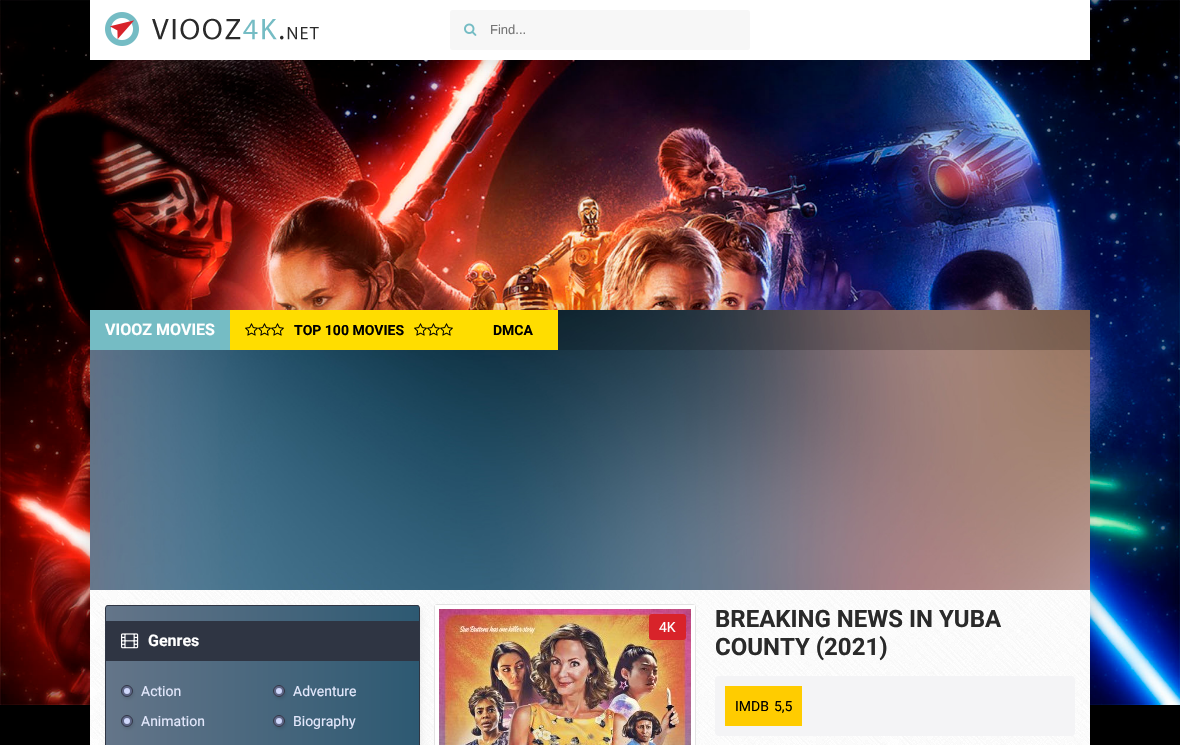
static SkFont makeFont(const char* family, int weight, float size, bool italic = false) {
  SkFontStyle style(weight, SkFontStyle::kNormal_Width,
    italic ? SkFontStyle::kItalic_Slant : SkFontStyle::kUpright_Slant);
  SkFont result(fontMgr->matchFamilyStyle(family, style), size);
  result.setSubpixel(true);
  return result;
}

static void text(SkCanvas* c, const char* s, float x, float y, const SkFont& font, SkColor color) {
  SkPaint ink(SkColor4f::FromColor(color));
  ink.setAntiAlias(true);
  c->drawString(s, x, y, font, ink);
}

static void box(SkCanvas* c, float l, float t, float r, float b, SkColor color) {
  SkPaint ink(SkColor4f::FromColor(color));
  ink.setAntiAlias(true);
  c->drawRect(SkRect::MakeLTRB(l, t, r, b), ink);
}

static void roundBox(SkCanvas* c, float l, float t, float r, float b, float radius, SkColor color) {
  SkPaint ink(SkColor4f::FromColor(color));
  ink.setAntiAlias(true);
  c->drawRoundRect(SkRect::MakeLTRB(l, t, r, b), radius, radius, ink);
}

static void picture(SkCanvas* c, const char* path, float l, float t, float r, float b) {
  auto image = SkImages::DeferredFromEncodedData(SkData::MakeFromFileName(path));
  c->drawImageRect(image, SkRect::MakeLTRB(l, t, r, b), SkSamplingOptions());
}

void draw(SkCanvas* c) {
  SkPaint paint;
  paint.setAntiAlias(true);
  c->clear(0xff000000);
  picture(c, "img_01.png", 0, 0, 1180, 705);
  paint.setColor(0x26000000);
  paint.setMaskFilter(SkMaskFilter::MakeBlur(kNormal_SkBlurStyle, 10));
  c->drawRect(SkRect::MakeLTRB(90, 0, 1090, 60), paint);
  paint.setMaskFilter(nullptr);
  box(c, 90, 0, 1090, 60, 0xffffffff);
  picture(c, "img_02.png", 105, 12, 319, 46);
  roundBox(c, 450, 10, 750, 50, 3, 0xfff7f7f7);
  picture(c, "img_03.png", 464, 23, 477, 36);
  SkFont face1 = makeFont("Liberation Sans", 400, 13);
  text(c, "Find...", 490, 34, face1, 0xff757575);
  paint.setMaskFilter(SkMaskFilter::MakeBlur(kNormal_SkBlurStyle, 10));
  c->drawRect(SkRect::MakeLTRB(90, 310, 1090, 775), paint);
  paint.setMaskFilter(nullptr);
  picture(c, "img_04.png", 90, 590, 1090, 745);
  picture(c, "img_05.png", 90, 310, 1090, 590);
  box(c, 558, 310, 1090, 350, 0x33000000);
  box(c, 90, 310, 230, 350, 0xff75bcc4);
  SkFont face2 = makeFont("Roboto", 700, 16);
  text(c, "VIOOZ MOVIES", 105, 335, face2, 0xffffffff);
  box(c, 230, 310, 558, 350, 0xffffdd00);
  picture(c, "img_06.png", 245, 323, 258, 336);
  picture(c, "img_06.png", 258, 323, 271, 336);
  picture(c, "img_06.png", 271, 323, 284, 336);
  SkFont face3 = makeFont("Roboto", 700, 14);
  text(c, "TOP 100 MOVIES", 294, 335, face3, 0xff000000);
  picture(c, "img_06.png", 414, 323, 427, 336);
  picture(c, "img_06.png", 427, 323, 440, 336);
  picture(c, "img_06.png", 440, 323, 453, 336);
  text(c, "DMCA", 493, 335, face3, 0xff000000);
  paint.setColor(0x0d000000);
  paint.setMaskFilter(SkMaskFilter::MakeBlur(kNormal_SkBlurStyle, 2.5f));
  c->drawRoundRect(SkRect::MakeLTRB(107, 609, 422, 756), 3, 3, paint);
  paint.setMaskFilter(nullptr);
  c->save();
  c->clipPath(SkPathBuilder().moveTo(108, 605).lineTo(417, 605).cubicTo(418.5f, 605, 420, 606.5f, 420, 608).lineTo(420, 1334).cubicTo(420, 1335.5f, 418.5f, 1337, 417, 1337).lineTo(108, 1337).cubicTo(106.5f, 1337, 105, 1335.5f, 105, 1334).lineTo(105, 608).cubicTo(105, 606.5f, 106.5f, 605, 108, 605).close().detach(), true);
  {
    const SkColor colors[] = {0xff647589, 0xff2d5972};
    const float stops[] = {0, 1};
    const SkPoint ends[] = {{106, 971}, {419, 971}};
    paint.setShader(SkGradientShader::MakeLinear(ends, colors, stops, 2, SkTileMode::kClamp));
    paint.setAlpha(255);
  }
  c->drawRect(SkRect::MakeLTRB(106, 605, 419, 745), paint);
  c->restore();
  paint.setStyle(SkPaint::kStroke_Style);
  paint.setStrokeWidth(1);
  paint.setShader(nullptr);
  paint.setColor(0xff2f3543);
  c->drawRoundRect(SkRect::MakeLTRB(105.5f, 605.5f, 419.5f, 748.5f), 2.5f, 2.5f, paint);
  box(c, 106, 621, 419, 661, 0xff2f3543);
  picture(c, "img_07.png", 121, 633, 139, 649);
  text(c, "Genres", 148, 646, face2, 0xffffffff);
  paint.setStyle(SkPaint::kFill_Style);
  paint.setColor(0x1a000000);
  paint.setMaskFilter(SkMaskFilter::MakeBlur(kNormal_SkBlurStyle, 1.5f));
  c->drawRoundRect(SkRect::MakeLTRB(122, 687, 134, 699), 6, 6, paint);
  paint.setMaskFilter(nullptr);
  paint.setColor(0xffd0d8fc);
  c->drawCircle(127, 691, 4.5f, paint);
  paint.setStyle(SkPaint::kStroke_Style);
  paint.setStrokeWidth(3);
  paint.setColor(0xff5f6787);
  c->drawCircle(127, 691, 4.5f, paint);
  paint.setStrokeWidth(1);
  paint.setColor(0xff2f3543);
  c->drawCircle(127, 691, 5.5f, paint);
  SkFont face4 = makeFont("Roboto", 400, 14);
  text(c, "Action", 141, 696, face4, 0xffe3e8fc);
  paint.setStyle(SkPaint::kFill_Style);
  paint.setColor(0x1a000000);
  paint.setMaskFilter(SkMaskFilter::MakeBlur(kNormal_SkBlurStyle, 1.5f));
  c->drawRoundRect(SkRect::MakeLTRB(274, 687, 286, 699), 6, 6, paint);
  paint.setMaskFilter(nullptr);
  paint.setColor(0xffd0d8fc);
  c->drawCircle(279, 691, 4.5f, paint);
  paint.setStyle(SkPaint::kStroke_Style);
  paint.setStrokeWidth(3);
  paint.setColor(0xff5f6787);
  c->drawCircle(279, 691, 4.5f, paint);
  paint.setStrokeWidth(1);
  paint.setColor(0xff2f3543);
  c->drawCircle(279, 691, 5.5f, paint);
  text(c, "Adventure", 293, 696, face4, 0xffe3e8fc);
  paint.setStyle(SkPaint::kFill_Style);
  paint.setColor(0x1a000000);
  paint.setMaskFilter(SkMaskFilter::MakeBlur(kNormal_SkBlurStyle, 1.5f));
  c->drawRoundRect(SkRect::MakeLTRB(122, 717, 134, 729), 6, 6, paint);
  paint.setMaskFilter(nullptr);
  paint.setColor(0xffd0d8fc);
  c->drawCircle(127, 721, 4.5f, paint);
  paint.setStyle(SkPaint::kStroke_Style);
  paint.setStrokeWidth(3);
  paint.setColor(0xff5f6787);
  c->drawCircle(127, 721, 4.5f, paint);
  paint.setStrokeWidth(1);
  paint.setColor(0xff2f3543);
  c->drawCircle(127, 721, 5.5f, paint);
  text(c, "Animation", 141, 726, face4, 0xffe3e8fc);
  paint.setStyle(SkPaint::kFill_Style);
  paint.setColor(0x1a000000);
  paint.setMaskFilter(SkMaskFilter::MakeBlur(kNormal_SkBlurStyle, 1.5f));
  c->drawRoundRect(SkRect::MakeLTRB(274, 717, 286, 729), 6, 6, paint);
  paint.setMaskFilter(nullptr);
  paint.setColor(0xffd0d8fc);
  c->drawCircle(279, 721, 4.5f, paint);
  paint.setStyle(SkPaint::kStroke_Style);
  paint.setStrokeWidth(3);
  paint.setColor(0xff5f6787);
  c->drawCircle(279, 721, 4.5f, paint);
  paint.setStrokeWidth(1);
  paint.setColor(0xff2f3543);
  c->drawCircle(279, 721, 5.5f, paint);
  text(c, "Biography", 293, 726, face4, 0xffe3e8fc);
  paint.setColor(0xffe3e3e3);
  c->drawRoundRect(SkRect::MakeLTRB(434.5f, 604.5f, 695.5f, 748.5f), 2.5f, 2.5f, paint);
  paint.setStrokeWidth(4);
  paint.setColor(0xffffffff);
  c->drawRect(SkRect::MakeLTRB(437, 607, 693, 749), paint);
  picture(c, "img_08.png", 439, 609, 691, 745);
  roundBox(c, 649, 614, 686, 640, 3, 0xffd8232a);
  text(c, "4K", 659, 632, face4, 0xffffffff);
  SkFont face5 = makeFont("Roboto", 700, 24);
  text(c, "BREAKING NEWS IN YUBA", 715, 627, face5, 0xff2a2a2a);
  text(c, "COUNTY (2021)", 715, 655, face5, 0xff2a2a2a);
  roundBox(c, 715, 676, 1075, 736, 4, 0xfff4f4f6);
  box(c, 725, 686, 802, 726, 0xffffcc00);
  text(c, "IMDB", 735, 711, face4, 0xff000000);
  text(c, "5,5", 774, 711, face4, 0xff000000);
}
